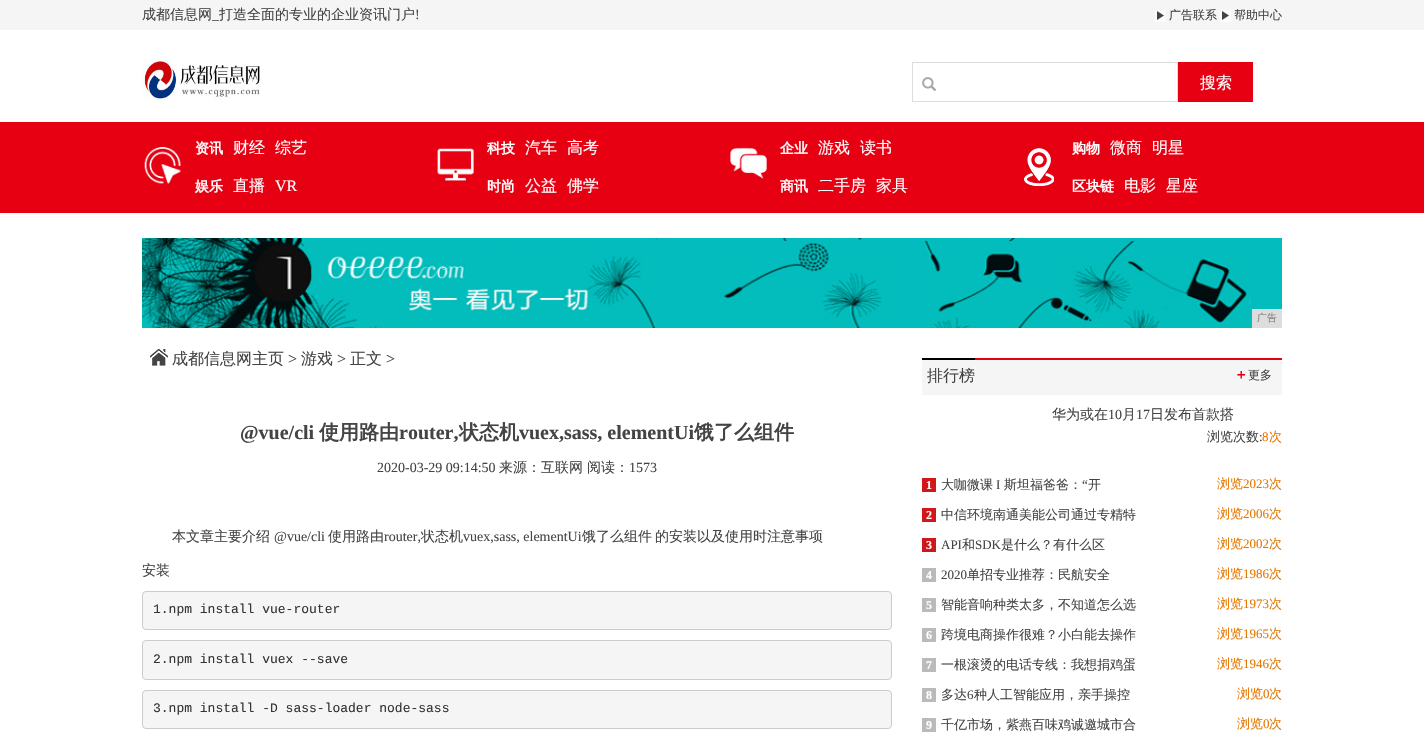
static SkFont makeFont(const char* family, int weight, float size, bool italic = false) {
  SkFontStyle style(weight, SkFontStyle::kNormal_Width,
    italic ? SkFontStyle::kItalic_Slant : SkFontStyle::kUpright_Slant);
  SkFont result(fontMgr->matchFamilyStyle(family, style), size);
  result.setSubpixel(true);
  return result;
}

static void text(SkCanvas* c, const char* s, float x, float y, const SkFont& font, SkColor color) {
  SkPaint ink(SkColor4f::FromColor(color));
  ink.setAntiAlias(true);
  c->drawString(s, x, y, font, ink);
}

static void box(SkCanvas* c, float l, float t, float r, float b, SkColor color) {
  SkPaint ink(SkColor4f::FromColor(color));
  ink.setAntiAlias(true);
  c->drawRect(SkRect::MakeLTRB(l, t, r, b), ink);
}

static void picture(SkCanvas* c, const char* path, float l, float t, float r, float b) {
  auto image = SkImages::DeferredFromEncodedData(SkData::MakeFromFileName(path));
  c->drawImageRect(image, SkRect::MakeLTRB(l, t, r, b), SkSamplingOptions());
}

void draw(SkCanvas* c) {
  SkPaint paint;
  paint.setAntiAlias(true);
  c->clear(0xffffffff);
  box(c, 0, 0, 1424, 30, 0xfff5f5f5);
  SkFont face1 = makeFont("WenQuanYi Zen Hei", 500, 14);
  text(c, "成都信息网", 142, 19, face1, 0xff444444);
  SkFont face2 = makeFont("Liberation Serif", 400, 14);
  text(c, "_", 212, 19, face2, 0xff444444);
  text(c, "打造全面的专业的企业资讯门户", 219, 19, face1, 0xff444444);
  text(c, "!", 415, 19, face2, 0xff444444);
  picture(c, "img_01.png", 1155, 10, 1166, 22);
  SkFont face3 = makeFont("WenQuanYi Zen Hei", 500, 12);
  text(c, "广告联系", 1169, 19, face3, 0xff444444);
  picture(c, "img_01.png", 1220, 10, 1231, 22);
  text(c, "帮助中心", 1234, 19, face3, 0xff444444);
  picture(c, "img_02.png", 142, 60, 260, 100);
  paint.setStyle(SkPaint::kStroke_Style);
  paint.setStrokeWidth(1);
  paint.setColor(0xffdddddd);
  c->drawRect(SkRect::MakeLTRB(912.5f, 62.5f, 1177.5f, 101.5f), paint);
  box(c, 1178, 62, 1253, 102, 0xffe60012);
  SkFont face4 = makeFont("WenQuanYi Zen Hei", 500, 16);
  text(c, "搜索", 1200, 88, face4, 0xffffffff);
  picture(c, "img_03.png", 922, 77, 936, 91);
  box(c, 0, 122, 1424, 213, 0xffe60012);
  picture(c, "img_04.png", 144, 147, 181, 184);
  SkFont face5 = makeFont("WenQuanYi Zen Hei", 700, 14);
  text(c, "资讯", 195, 153, face5, 0xffffffff);
  text(c, "财经", 233, 153, face4, 0xffffffff);
  text(c, "综艺", 275, 153, face4, 0xffffffff);
  text(c, "娱乐", 195, 191, face5, 0xffffffff);
  text(c, "直播", 233, 191, face4, 0xffffffff);
  SkFont face6 = makeFont("Liberation Serif", 400, 16);
  text(c, "VR", 275, 191, face6, 0xffffffff);
  picture(c, "img_05.png", 437, 148, 474, 181);
  text(c, "科技", 487, 153, face5, 0xffffffff);
  text(c, "汽车", 525, 153, face4, 0xffffffff);
  text(c, "高考", 567, 153, face4, 0xffffffff);
  text(c, "时尚", 487, 191, face5, 0xffffffff);
  text(c, "公益", 525, 191, face4, 0xffffffff);
  text(c, "佛学", 567, 191, face4, 0xffffffff);
  picture(c, "img_06.png", 730, 147, 767, 179);
  text(c, "企业", 780, 153, face5, 0xffffffff);
  text(c, "游戏", 818, 153, face4, 0xffffffff);
  text(c, "读书", 860, 153, face4, 0xffffffff);
  text(c, "商讯", 780, 191, face5, 0xffffffff);
  text(c, "二手房", 818, 191, face4, 0xffffffff);
  text(c, "家具", 876, 191, face4, 0xffffffff);
  picture(c, "img_07.png", 1024, 148, 1054, 186);
  text(c, "购物", 1072, 153, face5, 0xffffffff);
  text(c, "微商", 1110, 153, face4, 0xffffffff);
  text(c, "明星", 1152, 153, face4, 0xffffffff);
  text(c, "区块链", 1072, 191, face5, 0xffffffff);
  text(c, "电影", 1124, 191, face4, 0xffffffff);
  text(c, "星座", 1166, 191, face4, 0xffffffff);
  picture(c, "img_08.png", 142, 238, 1282, 328);
  box(c, 1252, 309, 1282, 328, 0xffdddddd);
  SkFont face7 = makeFont("WenQuanYi Zen Hei", 500, 10);
  text(c, "广告", 1257, 321, face7, 0xff808080);
  picture(c, "img_09.png", 150, 349, 168, 366);
  text(c, "成都信息网主页", 172, 364, face4, 0xff444444);
  text(c, ">", 288, 364, face6, 0xff444444);
  text(c, "游戏", 301, 364, face4, 0xff444444);
  text(c, ">", 337, 364, face6, 0xff444444);
  text(c, "正文", 350, 364, face4, 0xff444444);
  text(c, ">", 386, 364, face6, 0xff444444);
  SkFont face8 = makeFont("Liberation Serif", 700, 20);
  text(c, "@vue/cli", 240, 439, face8, 0xff444444);
  SkFont face9 = makeFont("WenQuanYi Zen Hei", 700, 20);
  text(c, "使用路由", 319, 439, face9, 0xff444444);
  text(c, "router,", 399, 439, face8, 0xff444444);
  text(c, "状态机", 459, 439, face9, 0xff444444);
  text(c, "vuex,sass, elementUi", 519, 439, face8, 0xff444444);
  text(c, "饿了么组件", 694, 439, face9, 0xff444444);
  text(c, "2020-03-29 09:14:50", 377, 472, face2, 0xff444444);
  text(c, "来源：互联网", 499, 472, face1, 0xff444444);
  text(c, "阅读：", 587, 472, face1, 0xff444444);
  text(c, "1573", 629, 472, face2, 0xff444444);
  text(c, "本文章主要介绍", 172, 541, face1, 0xff444444);
  text(c, "@vue/cli", 274, 541, face2, 0xff444444);
  text(c, "使用路由", 328, 541, face1, 0xff444444);
  text(c, "router,", 384, 541, face2, 0xff444444);
  text(c, "状态机", 421, 541, face1, 0xff444444);
  text(c, "vuex,sass, elementUi", 463, 541, face2, 0xff444444);
  text(c, "饿了么组件", 582, 541, face1, 0xff444444);
  text(c, "的安装以及使用时注意事项", 655, 541, face1, 0xff444444);
  text(c, "安装", 142, 575, face1, 0xff444444);
  paint.setStyle(SkPaint::kFill_Style);
  paint.setColor(0xfff5f5f5);
  c->drawRoundRect(SkRect::MakeLTRB(142.5f, 591.5f, 891.5f, 629.5f), 3.5f, 3.5f, paint);
  paint.setStyle(SkPaint::kStroke_Style);
  paint.setColor(0xffcccccc);
  c->drawRoundRect(SkRect::MakeLTRB(142.5f, 591.5f, 891.5f, 629.5f), 3.5f, 3.5f, paint);
  SkFont face10 = makeFont("Liberation Mono", 400, 13);
  text(c, "1.npm install vue-router", 153, 613, face10, 0xff333333);
  paint.setStyle(SkPaint::kFill_Style);
  paint.setColor(0xfff5f5f5);
  c->drawRoundRect(SkRect::MakeLTRB(142.5f, 640.5f, 891.5f, 679.5f), 3.5f, 3.5f, paint);
  paint.setStyle(SkPaint::kStroke_Style);
  paint.setColor(0xffcccccc);
  c->drawRoundRect(SkRect::MakeLTRB(142.5f, 640.5f, 891.5f, 679.5f), 3.5f, 3.5f, paint);
  text(c, "2.npm install vuex --save", 153, 663, face10, 0xff333333);
  paint.setStyle(SkPaint::kFill_Style);
  paint.setColor(0xfff5f5f5);
  c->drawRoundRect(SkRect::MakeLTRB(142.5f, 690.5f, 891.5f, 728.5f), 3.5f, 3.5f, paint);
  paint.setStyle(SkPaint::kStroke_Style);
  paint.setColor(0xffcccccc);
  c->drawRoundRect(SkRect::MakeLTRB(142.5f, 690.5f, 891.5f, 728.5f), 3.5f, 3.5f, paint);
  text(c, "3.npm install -D sass-loader node-sass", 153, 712, face10, 0xff333333);
  box(c, 922, 360, 1282, 395, 0xfff5f5f5);
  box(c, 975, 358, 1282, 360, 0xffe60012);
  box(c, 922, 358, 975, 360, 0xff000000);
  text(c, "排行榜", 927, 381, face4, 0xff444444);
  text(c, "＋", 1234, 379, face5, 0xffe60012);
  text(c, "更多", 1248, 379, face3, 0xff444444);
  text(c, "华为或在", 1052, 419, face1, 0xff444444);
  text(c, "10", 1108, 419, face2, 0xff444444);
  text(c, "月", 1122, 419, face1, 0xff444444);
  text(c, "17", 1136, 419, face2, 0xff444444);
  text(c, "日发布首款搭", 1150, 419, face1, 0xff444444);
  SkFont face11 = makeFont("WenQuanYi Zen Hei", 500, 13);
  text(c, "浏览次数", 1207, 441, face11, 0xff444444);
  SkFont face12 = makeFont("Liberation Serif", 400, 13);
  text(c, ":", 1259, 441, face12, 0xff444444);
  text(c, "8", 1262, 441, face12, 0xffe67700);
  text(c, "次", 1269, 441, face11, 0xffe67700);
  box(c, 922, 478, 936, 492, 0xffd1171a);
  SkFont face13 = makeFont("Liberation Serif", 700, 12);
  text(c, "1", 926, 489, face13, 0xffffffff);
  text(c, "大咖微课", 941, 489, face11, 0xff444444);
  text(c, "I", 996, 489, face12, 0xff444444);
  text(c, "斯坦福爸爸：", 1004, 489, face11, 0xff444444);
  text(c, "“", 1082, 489, face12, 0xff444444);
  text(c, "开", 1088, 489, face11, 0xff444444);
  text(c, "浏览", 1217, 488, face11, 0xffe67700);
  text(c, "2023", 1243, 488, face12, 0xffe67700);
  text(c, "次", 1269, 488, face11, 0xffe67700);
  box(c, 922, 508, 936, 522, 0xffd1171a);
  text(c, "2", 926, 519, face13, 0xffffffff);
  text(c, "中信环境南通美能公司通过专精特", 941, 519, face11, 0xff444444);
  text(c, "浏览", 1217, 518, face11, 0xffe67700);
  text(c, "2006", 1243, 518, face12, 0xffe67700);
  text(c, "次", 1269, 518, face11, 0xffe67700);
  box(c, 922, 538, 936, 552, 0xffd1171a);
  text(c, "3", 926, 549, face13, 0xffffffff);
  text(c, "API", 941, 549, face12, 0xff444444);
  text(c, "和", 962, 549, face11, 0xff444444);
  text(c, "SDK", 975, 549, face12, 0xff444444);
  text(c, "是什么？有什么区", 1001, 549, face11, 0xff444444);
  text(c, "浏览", 1217, 548, face11, 0xffe67700);
  text(c, "2002", 1243, 548, face12, 0xffe67700);
  text(c, "次", 1269, 548, face11, 0xffe67700);
  box(c, 922, 568, 936, 582, 0xffbababa);
  text(c, "4", 926, 579, face13, 0xffffffff);
  text(c, "2020", 941, 579, face12, 0xff444444);
  text(c, "单招专业推荐：民航安全", 967, 579, face11, 0xff444444);
  text(c, "浏览", 1217, 578, face11, 0xffe67700);
  text(c, "1986", 1243, 578, face12, 0xffe67700);
  text(c, "次", 1269, 578, face11, 0xffe67700);
  box(c, 922, 598, 936, 612, 0xffbababa);
  text(c, "5", 926, 609, face13, 0xffffffff);
  text(c, "智能音响种类太多，不知道怎么选", 941, 609, face11, 0xff444444);
  text(c, "浏览", 1217, 608, face11, 0xffe67700);
  text(c, "1973", 1243, 608, face12, 0xffe67700);
  text(c, "次", 1269, 608, face11, 0xffe67700);
  box(c, 922, 628, 936, 642, 0xffbababa);
  text(c, "6", 926, 639, face13, 0xffffffff);
  text(c, "跨境电商操作很难？小白能去操作", 941, 639, face11, 0xff444444);
  text(c, "浏览", 1217, 638, face11, 0xffe67700);
  text(c, "1965", 1243, 638, face12, 0xffe67700);
  text(c, "次", 1269, 638, face11, 0xffe67700);
  box(c, 922, 658, 936, 672, 0xffbababa);
  text(c, "7", 926, 669, face13, 0xffffffff);
  text(c, "一根滚烫的电话专线：我想捐鸡蛋", 941, 669, face11, 0xff444444);
  text(c, "浏览", 1217, 668, face11, 0xffe67700);
  text(c, "1946", 1243, 668, face12, 0xffe67700);
  text(c, "次", 1269, 668, face11, 0xffe67700);
  box(c, 922, 688, 936, 702, 0xffbababa);
  text(c, "8", 926, 699, face13, 0xffffffff);
  text(c, "多达", 941, 699, face11, 0xff444444);
  text(c, "6", 967, 699, face12, 0xff444444);
  text(c, "种人工智能应用，亲手操控", 974, 699, face11, 0xff444444);
  text(c, "浏览", 1237, 698, face11, 0xffe67700);
  text(c, "0", 1263, 698, face12, 0xffe67700);
  text(c, "次", 1269, 698, face11, 0xffe67700);
  box(c, 922, 718, 936, 732, 0xffbababa);
  text(c, "9", 926, 729, face13, 0xffffffff);
  text(c, "千亿市场，紫燕百味鸡诚邀城市合", 941, 729, face11, 0xff444444);
  text(c, "浏览", 1237, 728, face11, 0xffe67700);
  text(c, "0", 1263, 728, face12, 0xffe67700);
  text(c, "次", 1269, 728, face11, 0xffe67700);
}
